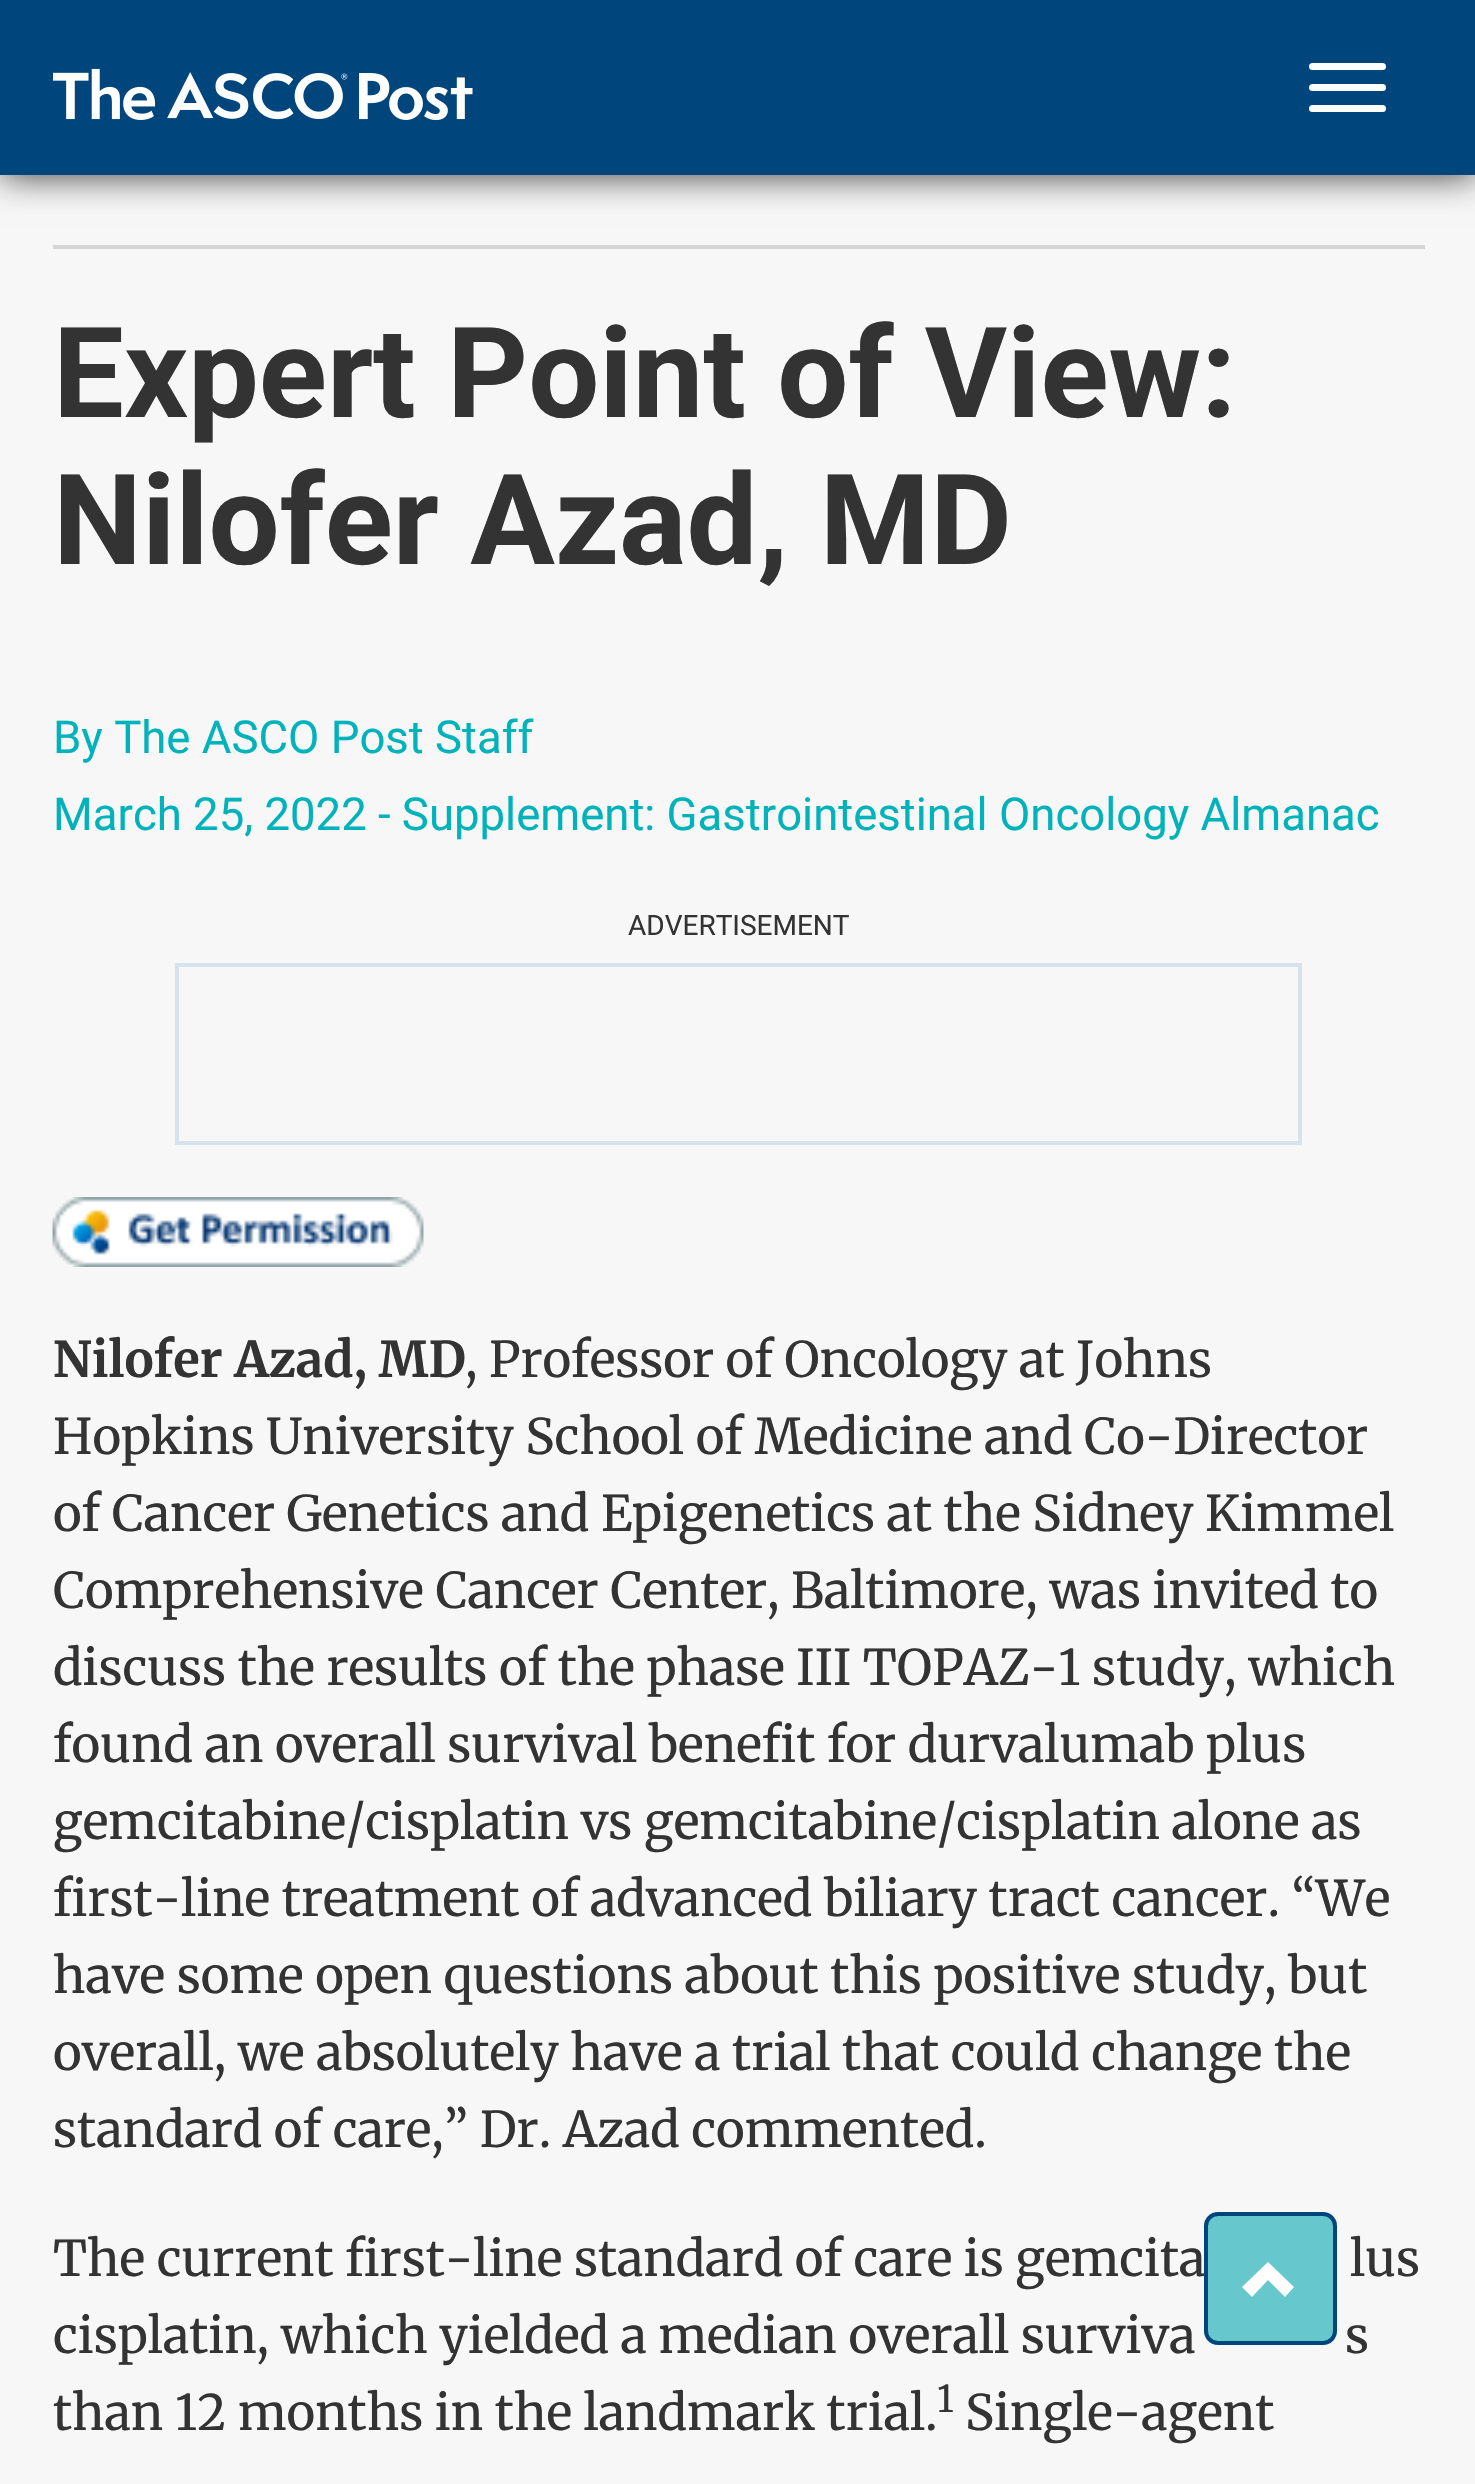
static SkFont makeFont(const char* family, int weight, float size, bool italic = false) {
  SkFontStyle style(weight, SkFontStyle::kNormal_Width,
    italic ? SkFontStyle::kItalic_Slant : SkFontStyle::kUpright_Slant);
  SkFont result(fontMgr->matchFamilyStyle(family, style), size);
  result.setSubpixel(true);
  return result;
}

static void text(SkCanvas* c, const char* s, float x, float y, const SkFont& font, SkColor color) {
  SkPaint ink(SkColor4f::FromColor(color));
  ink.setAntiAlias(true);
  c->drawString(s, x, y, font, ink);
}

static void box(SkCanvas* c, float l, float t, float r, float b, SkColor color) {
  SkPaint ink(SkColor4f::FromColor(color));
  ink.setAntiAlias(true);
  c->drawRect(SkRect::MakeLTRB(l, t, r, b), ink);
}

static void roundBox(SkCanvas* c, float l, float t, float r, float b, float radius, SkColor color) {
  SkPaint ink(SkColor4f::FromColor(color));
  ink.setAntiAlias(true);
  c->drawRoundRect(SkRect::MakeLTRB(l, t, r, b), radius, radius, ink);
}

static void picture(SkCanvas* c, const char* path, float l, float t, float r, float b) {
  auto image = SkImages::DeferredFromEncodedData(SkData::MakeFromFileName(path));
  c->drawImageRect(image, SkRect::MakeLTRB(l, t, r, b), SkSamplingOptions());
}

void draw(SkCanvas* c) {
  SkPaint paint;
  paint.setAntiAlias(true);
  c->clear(0xfff7f7f7);
  paint.setColor(0xcc000000);
  paint.setMaskFilter(SkMaskFilter::MakeBlur(kNormal_SkBlurStyle, 17.5f));
  c->drawRect(SkRect::MakeLTRB(0, 0, 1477, 175), paint);
  paint.setMaskFilter(nullptr);
  box(c, 0, 0, 1475, 175, 0xff00457c);
  picture(c, "img_01.png", 53, 68, 473, 121);
  roundBox(c, 1309, 63, 1386, 70, 3.5f, 0xffffffff);
  roundBox(c, 1309, 84, 1386, 91, 3.5f, 0xffffffff);
  roundBox(c, 1309, 105, 1386, 112, 3.5f, 0xffffffff);
  box(c, 53, 245, 1425, 249, 0xffd4d4d4);
  SkFont face1 = makeFont("Roboto", 700, 126);
  text(c, "Expert Point of View:", 53, 417, face1, 0xff333333);
  text(c, "Nilofer Azad, MD", 53, 564, face1, 0xff333333);
  SkFont face2 = makeFont("Roboto", 400, 45.5f);
  text(c, "By The ASCO Post Staff", 53, 753, face2, 0xff00b3bb);
  text(c, "March 25, 2022 - Supplement: Gastrointestinal Oncology Almanac", 53, 830, face2, 0xff00b3bb);
  SkFont face3 = makeFont("Roboto", 400, 28);
  text(c, "ADVERTISEMENT", 628, 935, face3, 0xff333333);
  paint.setStyle(SkPaint::kStroke_Style);
  paint.setStrokeWidth(4);
  paint.setColor(0xffd6e3ec);
  c->drawRect(SkRect::MakeLTRB(177, 965, 1300, 1143), paint);
  picture(c, "img_02.png", 52, 1197, 424, 1267);
  SkFont face4 = makeFont("Merriweather", 700, 49);
  text(c, "Nilofer Azad, MD", 53, 1377, face4, 0xff333333);
  SkFont face5 = makeFont("Merriweather", 400, 49);
  text(c, ", Professor of Oncology at Johns", 465, 1377, face5, 0xff333333);
  text(c, "Hopkins University School of Medicine and Co-Director", 53, 1454, face5, 0xff333333);
  text(c, "of Cancer Genetics and Epigenetics at the Sidney Kimmel", 53, 1531, face5, 0xff333333);
  text(c, "Comprehensive Cancer Center, Baltimore, was invited to", 53, 1608, face5, 0xff333333);
  text(c, "discuss the results of the phase III TOPAZ-1 study, which", 53, 1685, face5, 0xff333333);
  text(c, "found an overall survival benefit for durvalumab plus", 53, 1762, face5, 0xff333333);
  text(c, "gemcitabine/cisplatin vs gemcitabine/cisplatin alone as", 53, 1839, face5, 0xff333333);
  text(c, "first-line treatment of advanced biliary tract cancer. “We", 53, 1916, face5, 0xff333333);
  text(c, "have some open questions about this positive study, but", 53, 1993, face5, 0xff333333);
  text(c, "overall, we absolutely have a trial that could change the", 53, 2070, face5, 0xff333333);
  text(c, "standard of care,” Dr. Azad commented.", 53, 2147, face5, 0xff333333);
  text(c, "The current first-line standard of care is gemcita", 53, 2276, face5, 0xff333333);
  text(c, "lus", 1350, 2276, face5, 0xff333333);
  text(c, "cisplatin, which yielded a median overall surviva", 53, 2353, face5, 0xff333333);
  text(c, "s", 1345, 2353, face5, 0xff333333);
  text(c, "than 12 months in the landmark trial.", 53, 2430, face5, 0xff333333);
  SkFont face6 = makeFont("Merriweather", 400, 37);
  text(c, "1", 937, 2412, face6, 0xff333333);
  text(c, "Single-agent", 965, 2430, face5, 0xff333333);
  paint.setStyle(SkPaint::kFill_Style);
  paint.setColor(0xb328b3bb);
  c->drawRoundRect(SkRect::MakeLTRB(1206, 2214, 1335, 2343), 12, 12, paint);
  paint.setStyle(SkPaint::kStroke_Style);
  paint.setColor(0xff00457c);
  c->drawRoundRect(SkRect::MakeLTRB(1206, 2214, 1335, 2343), 12, 12, paint);
  paint.setStyle(SkPaint::kFill_Style);
  paint.setColor(0xffffffff);
  c->drawPath(SkPathBuilder().moveTo(1294, 2287).lineTo(1285, 2297).lineTo(1268, 2280).lineTo(1252, 2297).lineTo(1242, 2287).lineTo(1268, 2262).close().detach(), paint);
}
